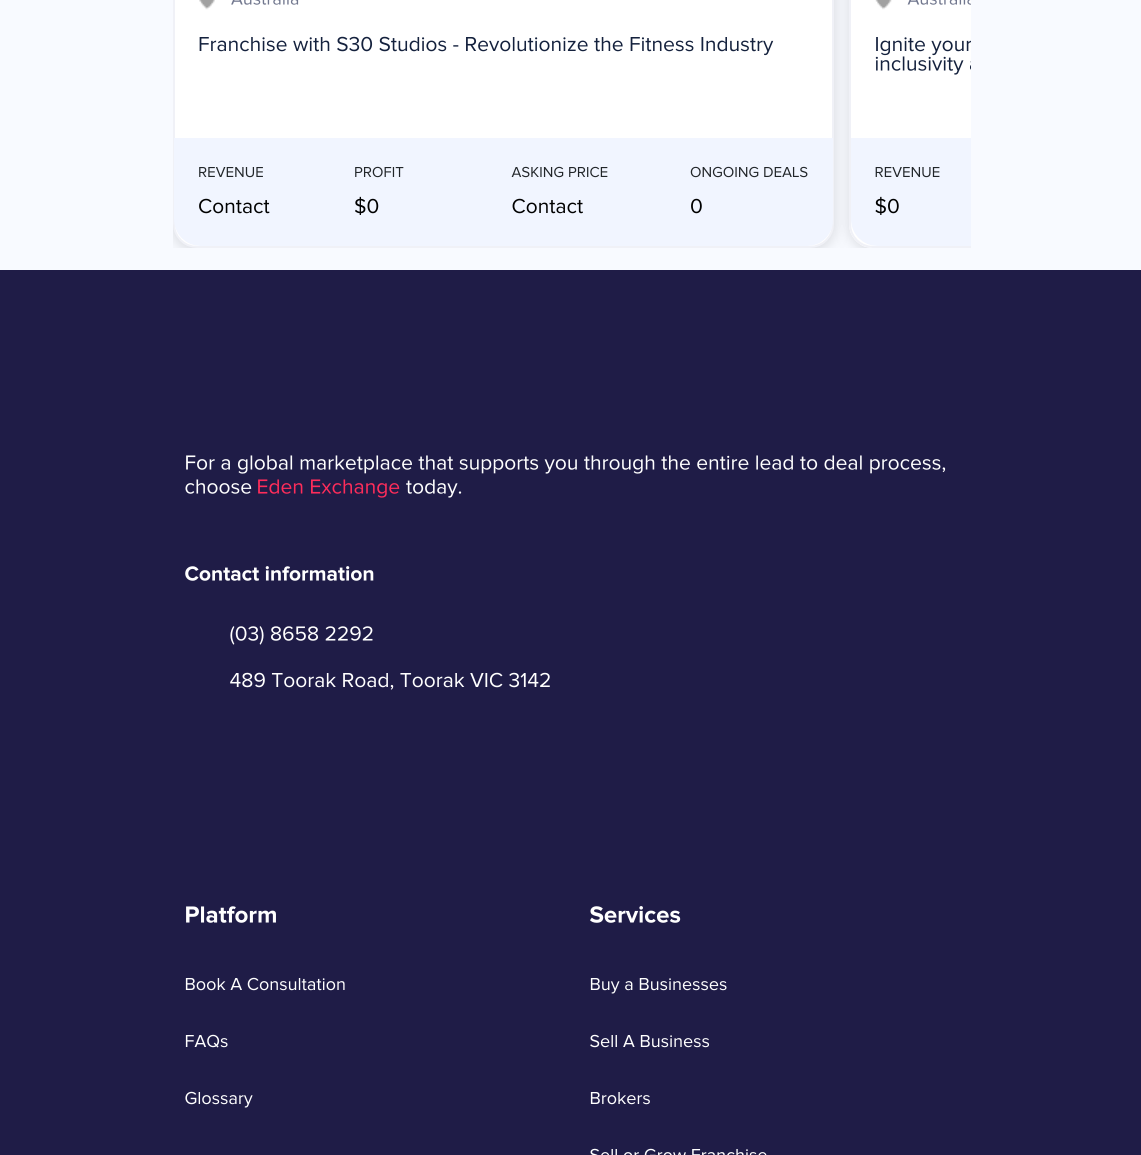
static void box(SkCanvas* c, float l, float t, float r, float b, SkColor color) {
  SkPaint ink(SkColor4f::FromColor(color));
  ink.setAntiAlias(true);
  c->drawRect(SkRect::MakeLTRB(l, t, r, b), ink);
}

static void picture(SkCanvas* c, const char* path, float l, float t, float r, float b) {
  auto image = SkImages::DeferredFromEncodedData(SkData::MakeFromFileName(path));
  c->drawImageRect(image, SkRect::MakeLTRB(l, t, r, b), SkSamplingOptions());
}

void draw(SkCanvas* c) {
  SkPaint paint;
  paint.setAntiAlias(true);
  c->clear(0xfff8faff);
  box(c, 0, 270, 1141, 1155, 0xff1f1c47);
  c->save();
  c->clipRect(SkRect::MakeLTRB(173, 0, 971, 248));
  paint.setColor(0x1a000000);
  paint.setMaskFilter(SkMaskFilter::MakeBlur(kNormal_SkBlurStyle, 6));
  c->drawRoundRect(SkRect::MakeLTRB(171, -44, 836, 252), 26, 26, paint);
  paint.setMaskFilter(nullptr);
  c->restore();
  paint.setColor(0xffffffff);
  c->drawRoundRect(SkRect::MakeLTRB(174, -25, 833, 247), 23, 23, paint);
  paint.setStyle(SkPaint::kStroke_Style);
  paint.setStrokeWidth(2);
  paint.setColor(0xfff0f1f7);
  c->drawRoundRect(SkRect::MakeLTRB(174, -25, 833, 247), 23, 23, paint);
  picture(c, "img_01.png", 199, 0, 215, 10);
  picture(c, "img_02.png", 231, 0, 299, 5);
  picture(c, "img_03.png", 199, 36, 774, 56);
  paint.setStyle(SkPaint::kFill_Style);
  paint.setColor(0xfff1f5ff);
  c->drawPath(SkPathBuilder().moveTo(174, 138).lineTo(833, 138).lineTo(833, 220).cubicTo(833, 234.5f, 821.5f, 246, 807, 246).lineTo(201, 246).cubicTo(186, 246, 174, 234, 174, 219).close().detach(), paint);
  picture(c, "img_04.png", 199, 167, 263, 178);
  picture(c, "img_05.png", 199, 198, 270, 214);
  picture(c, "img_06.png", 355, 166, 404, 178);
  picture(c, "img_07.png", 355, 196, 379, 215);
  picture(c, "img_08.png", 511, 166, 608, 178);
  picture(c, "img_09.png", 512, 198, 583, 214);
  picture(c, "img_10.png", 690, 166, 808, 178);
  picture(c, "img_11.png", 691, 198, 702, 214);
  c->save();
  c->clipRect(SkRect::MakeLTRB(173, 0, 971, 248));
  paint.setColor(0x1a000000);
  paint.setMaskFilter(SkMaskFilter::MakeBlur(kNormal_SkBlurStyle, 6));
  c->drawRoundRect(SkRect::MakeLTRB(848, -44, 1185, 252), 26, 26, paint);
  paint.setMaskFilter(nullptr);
  c->restore();
  paint.setColor(0xffffffff);
  c->drawPath(SkPathBuilder().moveTo(873, -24).lineTo(971, -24).lineTo(971, 248).lineTo(873, 248).cubicTo(859.5f, 248, 849, 237.5f, 849, 224).lineTo(849, 0).cubicTo(849, -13.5f, 859.5f, -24, 873, -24).close().detach(), paint);
  c->save();
  c->clipRect(SkRect::MakeLTRB(173, 0, 971, 248));
  paint.setStyle(SkPaint::kStroke_Style);
  paint.setColor(0xfff0f1f7);
  c->drawRoundRect(SkRect::MakeLTRB(850, -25, 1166, 247), 23, 23, paint);
  c->restore();
  picture(c, "img_12.png", 875, 0, 892, 10);
  picture(c, "img_13.png", 907, 0, 971, 5);
  picture(c, "img_14.png", 876, 37, 971, 56);
  picture(c, "img_15.png", 875, 56, 971, 75);
  paint.setStyle(SkPaint::kFill_Style);
  paint.setColor(0xfff1f5ff);
  c->drawPath(SkPathBuilder().moveTo(851, 138).lineTo(971, 138).lineTo(971, 246).lineTo(878, 246).cubicTo(863, 246, 851, 234, 851, 219).close().detach(), paint);
  picture(c, "img_16.png", 875, 167, 940, 178);
  picture(c, "img_17.png", 875, 196, 899, 215);
  picture(c, "img_18.png", 186, 455, 946, 474);
  picture(c, "img_19.png", 185, 479, 252, 494);
  picture(c, "img_20.png", 258, 479, 400, 498);
  picture(c, "img_21.png", 406, 479, 462, 498);
  picture(c, "img_22.png", 185, 566, 374, 581);
  picture(c, "img_23.png", 230, 626, 373, 645);
  picture(c, "img_24.png", 230, 672, 550, 690);
  picture(c, "img_25.png", 186, 906, 276, 923);
  picture(c, "img_26.png", 185, 977, 345, 991);
  picture(c, "img_27.png", 185, 1034, 228, 1048);
  picture(c, "img_28.png", 185, 1091, 253, 1108);
  picture(c, "img_29.png", 590, 906, 681, 923);
  picture(c, "img_30.png", 590, 978, 727, 994);
  picture(c, "img_31.png", 590, 1034, 710, 1048);
  picture(c, "img_32.png", 590, 1092, 650, 1105);
  picture(c, "img_33.png", 590, 1148, 767, 1155);
}
